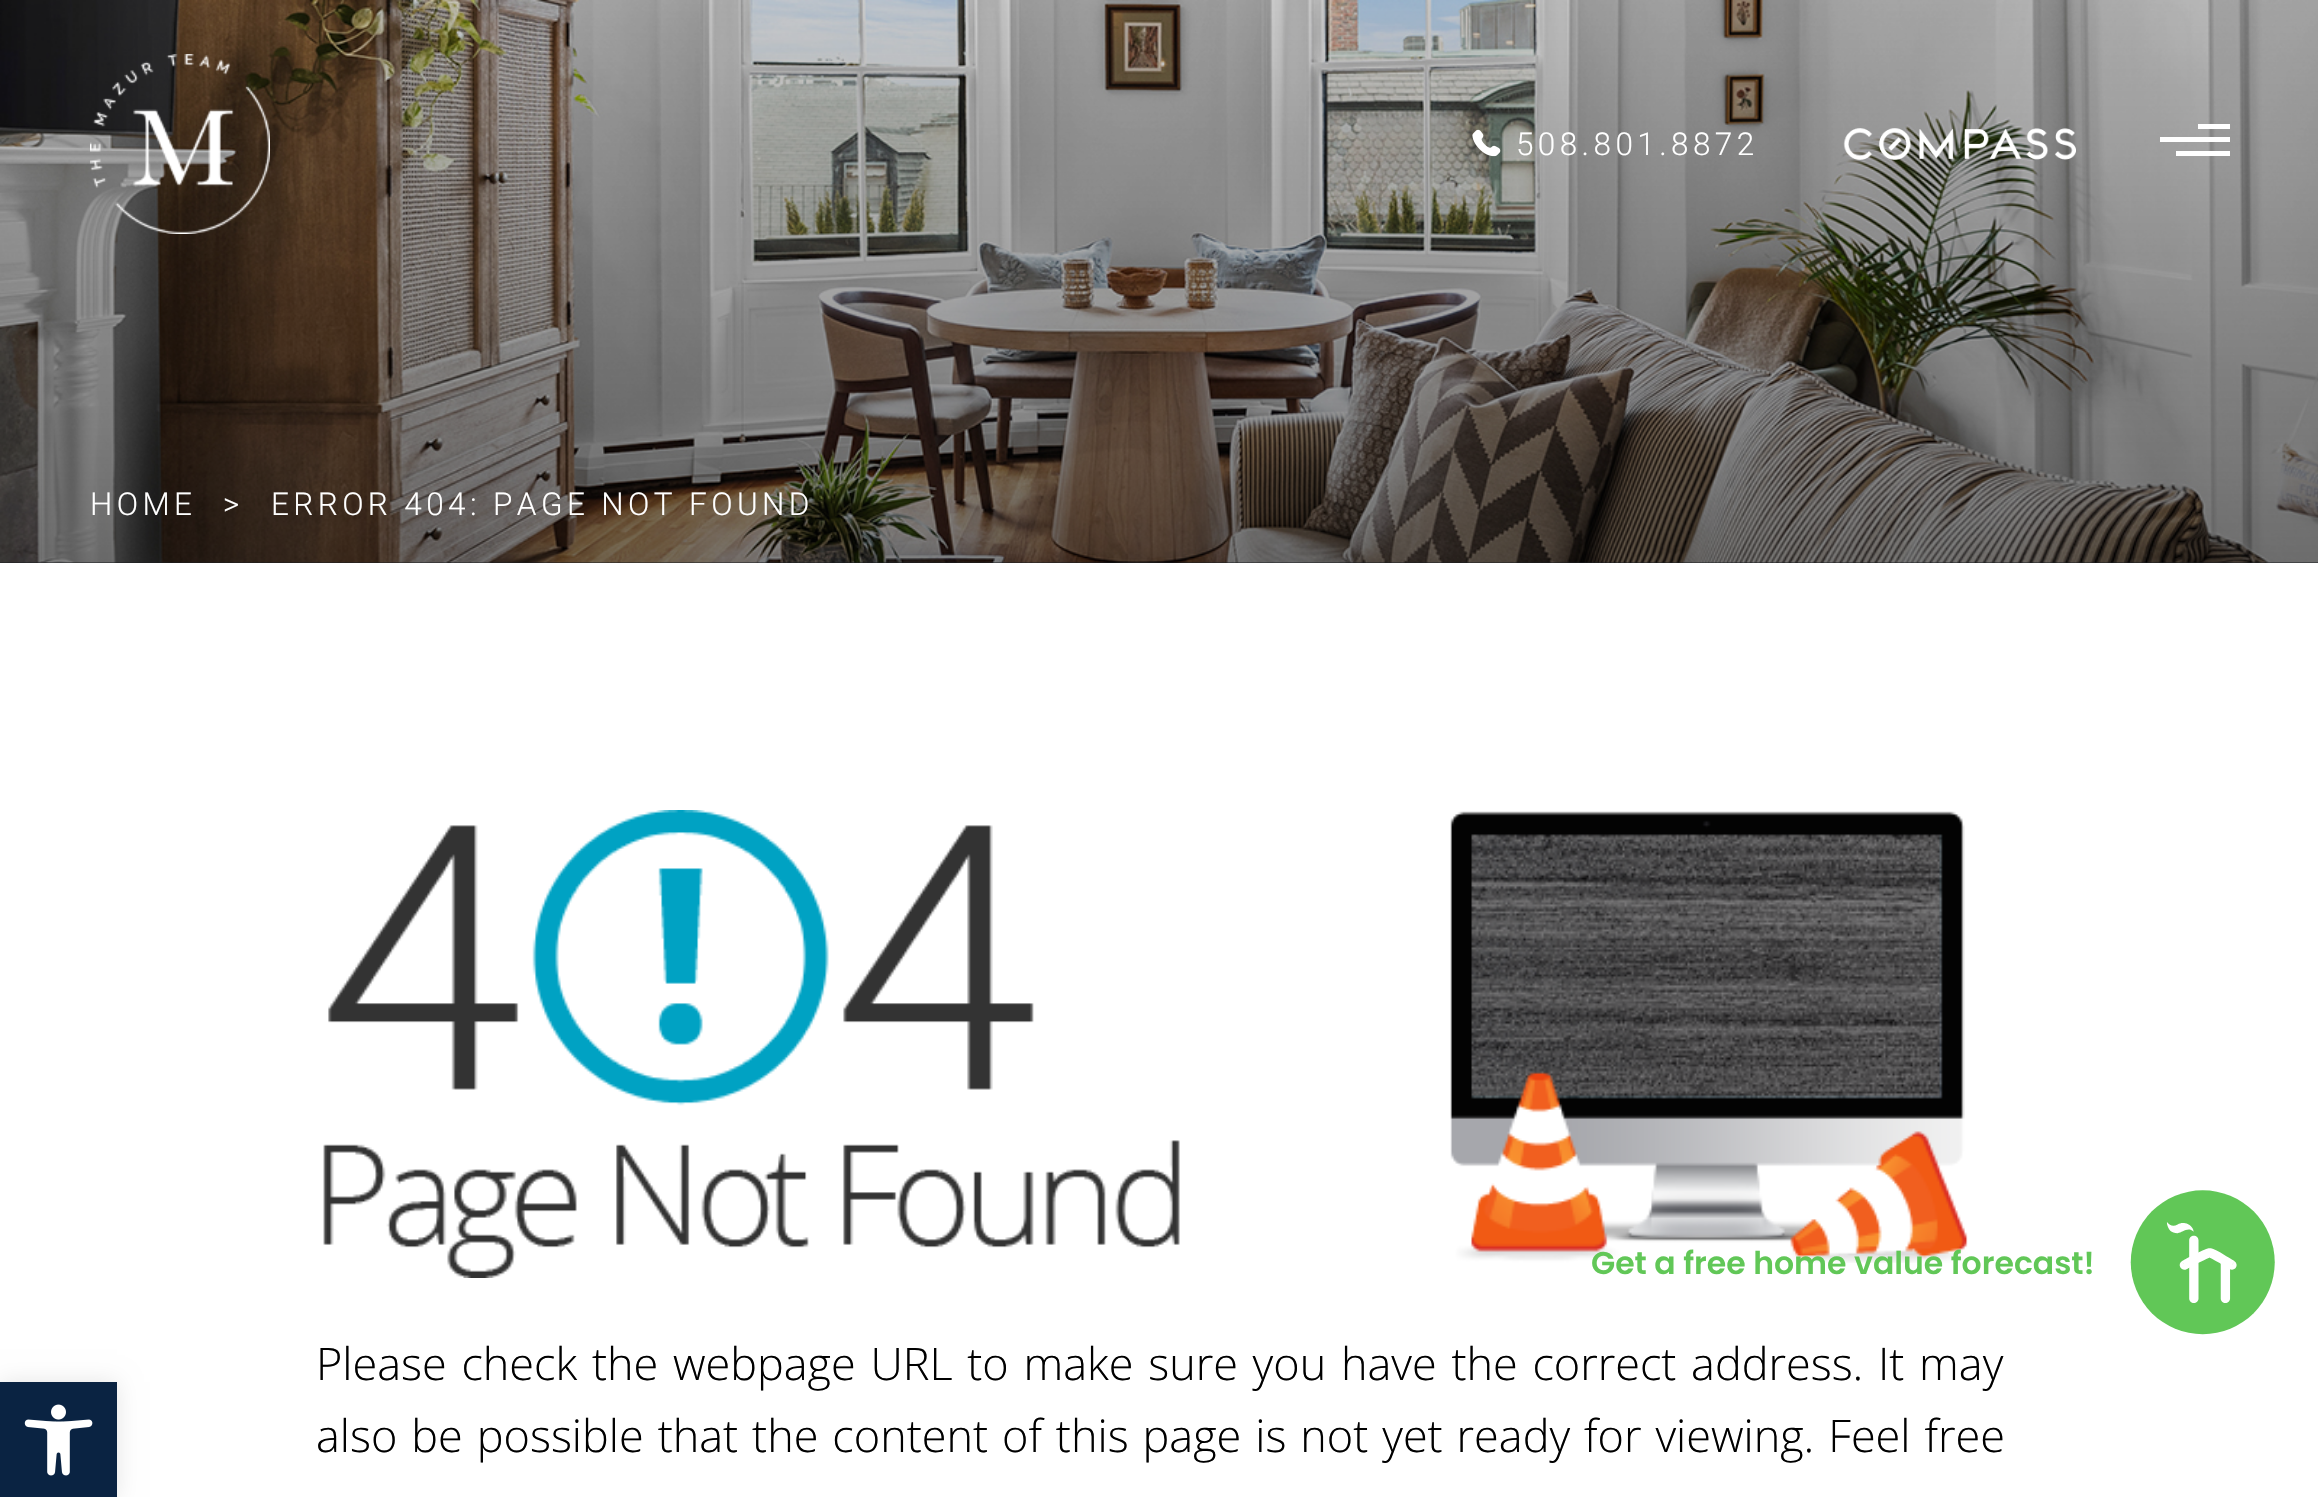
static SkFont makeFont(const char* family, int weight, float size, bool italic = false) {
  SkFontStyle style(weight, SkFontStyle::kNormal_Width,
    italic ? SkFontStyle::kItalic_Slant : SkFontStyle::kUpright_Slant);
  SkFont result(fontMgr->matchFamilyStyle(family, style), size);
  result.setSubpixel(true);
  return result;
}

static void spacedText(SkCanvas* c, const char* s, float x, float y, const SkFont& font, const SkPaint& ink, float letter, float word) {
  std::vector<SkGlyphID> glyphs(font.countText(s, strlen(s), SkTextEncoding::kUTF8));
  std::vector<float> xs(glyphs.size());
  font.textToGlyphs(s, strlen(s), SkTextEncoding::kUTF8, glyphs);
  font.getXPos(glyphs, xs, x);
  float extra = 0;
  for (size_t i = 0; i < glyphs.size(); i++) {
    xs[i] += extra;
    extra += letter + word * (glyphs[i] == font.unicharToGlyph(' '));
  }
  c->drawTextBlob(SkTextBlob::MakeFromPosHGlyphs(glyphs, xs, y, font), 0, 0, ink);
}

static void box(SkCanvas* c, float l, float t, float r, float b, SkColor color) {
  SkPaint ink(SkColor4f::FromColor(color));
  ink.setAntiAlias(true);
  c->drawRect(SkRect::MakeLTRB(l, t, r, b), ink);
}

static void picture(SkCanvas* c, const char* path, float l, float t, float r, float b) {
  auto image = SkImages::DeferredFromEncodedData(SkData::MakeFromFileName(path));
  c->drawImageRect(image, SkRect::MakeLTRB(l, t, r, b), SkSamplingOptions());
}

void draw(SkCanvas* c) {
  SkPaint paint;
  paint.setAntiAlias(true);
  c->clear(0xffffffff);
  box(c, 0, 562, 2318, 563, 0xff343a40);
  picture(c, "img_04.png", 0, 0, 2318, 563);
  {
    const SkColor colors[] = {0x33000000, 0x80000000};
    const float stops[] = {0, 1};
    const SkPoint ends[] = {{1160, 0}, {1160, 563}};
    paint.setShader(SkGradientShader::MakeLinear(ends, colors, stops, 2, SkTileMode::kClamp));
    paint.setAlpha(255);
  }
  c->drawRect(SkRect::MakeLTRB(0, 0, 2318, 563), paint);
  picture(c, "img_01.png", 90, 54, 270, 234);
  picture(c, "img_02.png", 1472, 129, 1501, 157);
  SkFont face1 = makeFont("Roboto", 300, 31.5f);
  paint.setShader(nullptr);
  paint.setColor(0xffffffff);
  spacedText(c, "508.801.8872", 1516, 155, face1, paint, 4.4f, 0);
  picture(c, "img_03.png", 1843, 128, 2076, 160);
  box(c, 2198, 124, 2230, 129, 0xffffffff);
  box(c, 2160, 137, 2230, 142, 0xffffffff);
  box(c, 2176, 151, 2230, 156, 0xffffffff);
  spacedText(c, "HOME", 90, 515, face1, paint, 4.4f, 0);
  spacedText(c, ">", 223, 515, face1, paint, 4.4f, 0);
  spacedText(c, "ERROR 404: PAGE NOT FOUND", 271, 515, face1, paint, 4.4f, 0);
  picture(c, "img_05.png", 323, 810, 1180, 1278);
  picture(c, "img_06.png", 1450, 811, 1968, 1263);
  SkFont face2 = makeFont("Open Sans", 300, 45);
  paint.setColor(0xff000000);
  spacedText(c, "Please check the webpage URL to make sure you have the correct address. It may", 316, 1380, face2, paint, 0, 3);
  spacedText(c, "also be possible that the content of this page is not yet ready for viewing. Feel free", 316, 1452, face2, paint, 0, 2.25f);
  picture(c, "img_07.png", 1592, 1190, 2275, 1335);
  paint.setColor(0x1a000000);
  paint.setMaskFilter(SkMaskFilter::MakeBlur(kNormal_SkBlurStyle, 11));
  c->drawRect(SkRect::MakeLTRB(0, 1382, 117, 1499), paint);
  paint.setMaskFilter(nullptr);
  box(c, 0, 1382, 117, 1497, 0xff0a2342);
  picture(c, "img_08.png", 24, 1404, 93, 1476);
}
